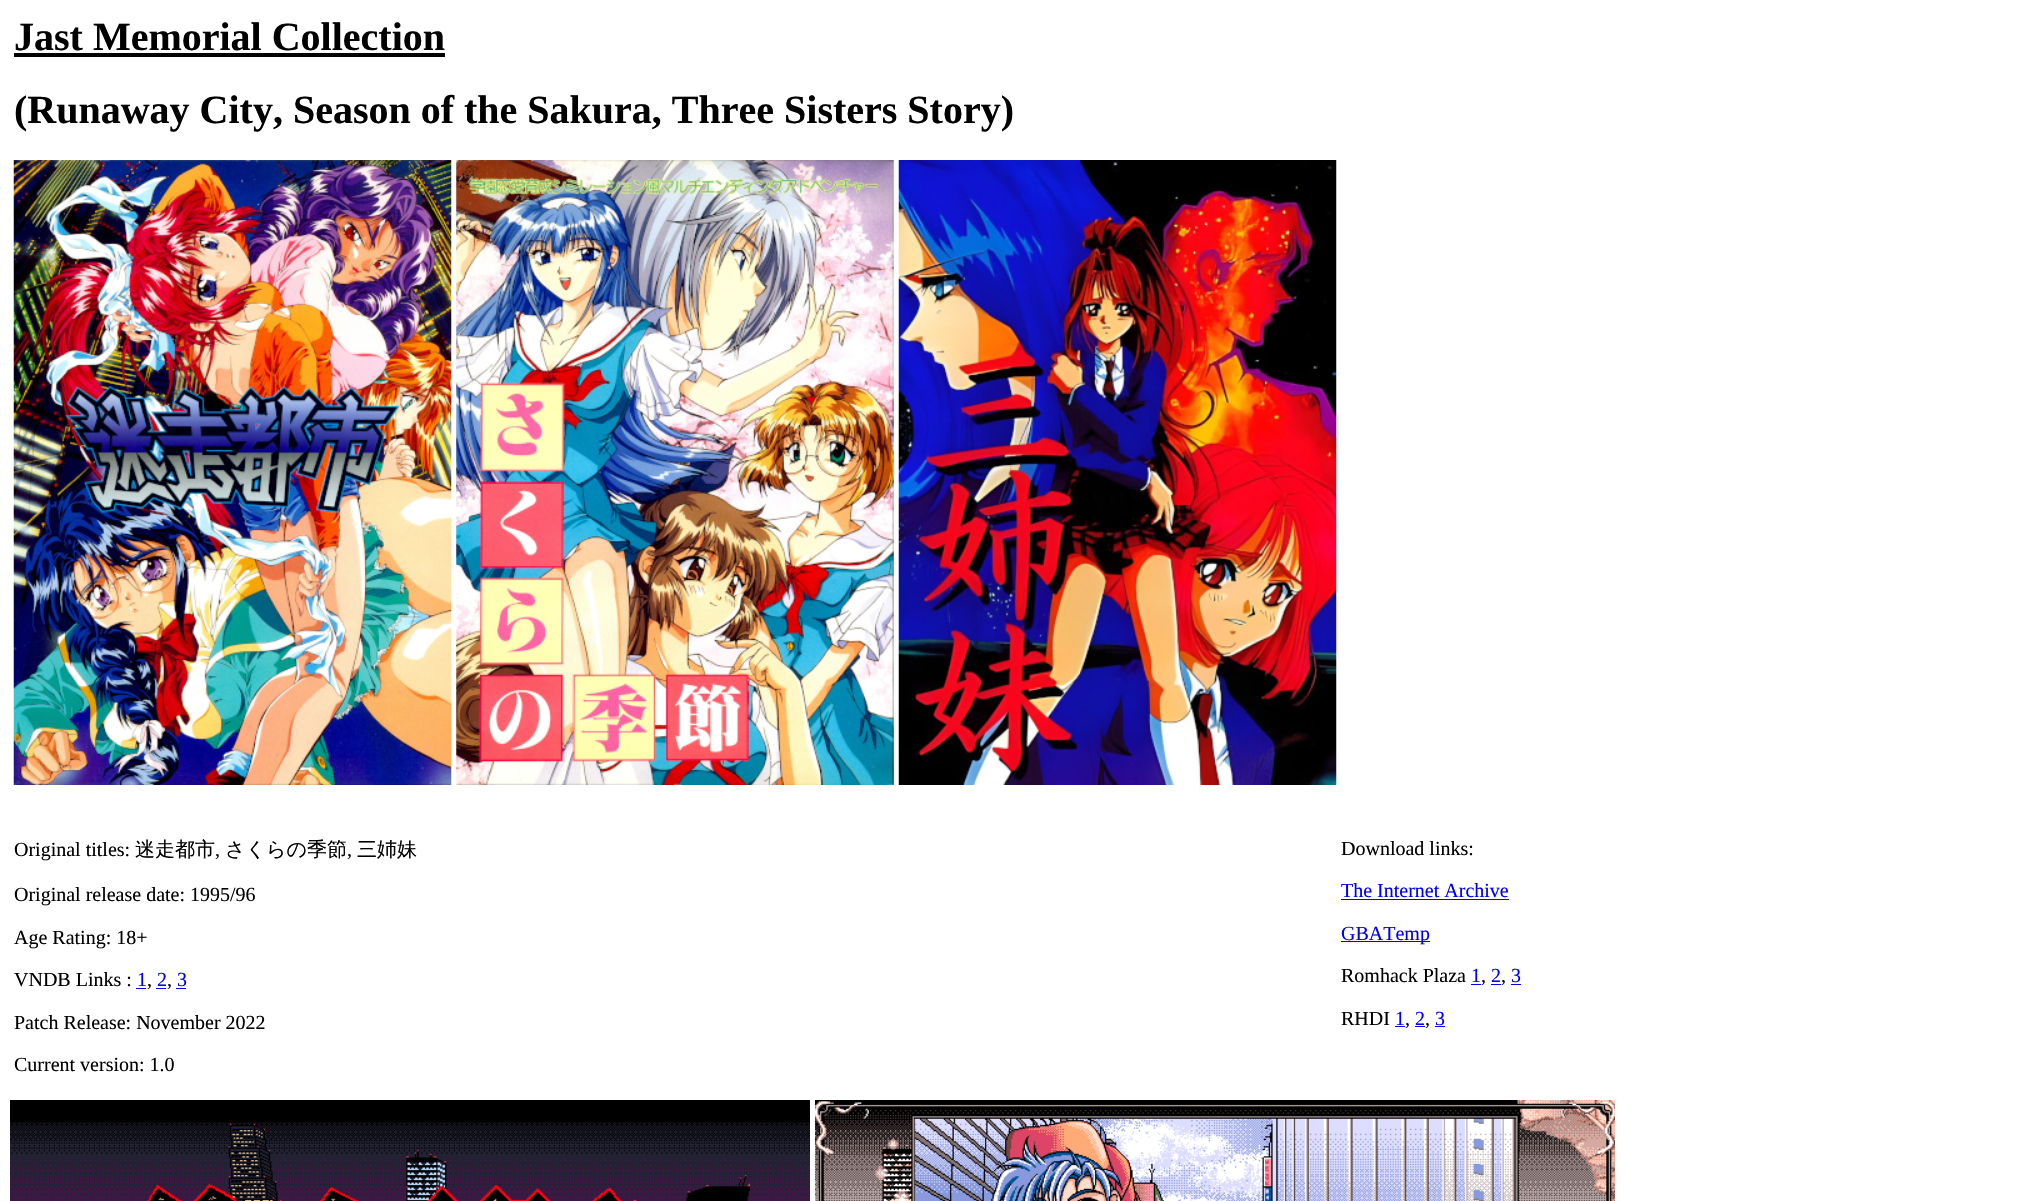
static SkFont makeFont(const char* family, int weight, float size, bool italic = false) {
  SkFontStyle style(weight, SkFontStyle::kNormal_Width,
    italic ? SkFontStyle::kItalic_Slant : SkFontStyle::kUpright_Slant);
  SkFont result(fontMgr->matchFamilyStyle(family, style), size);
  result.setSubpixel(true);
  return result;
}

static void text(SkCanvas* c, const char* s, float x, float y, const SkFont& font, SkColor color) {
  SkPaint ink(SkColor4f::FromColor(color));
  ink.setAntiAlias(true);
  c->drawString(s, x, y, font, ink);
}

static void box(SkCanvas* c, float l, float t, float r, float b, SkColor color) {
  SkPaint ink(SkColor4f::FromColor(color));
  ink.setAntiAlias(true);
  c->drawRect(SkRect::MakeLTRB(l, t, r, b), ink);
}

static void picture(SkCanvas* c, const char* path, float l, float t, float r, float b) {
  auto image = SkImages::DeferredFromEncodedData(SkData::MakeFromFileName(path));
  c->drawImageRect(image, SkRect::MakeLTRB(l, t, r, b), SkSamplingOptions());
}

void draw(SkCanvas* c) {
  SkPaint paint;
  paint.setAntiAlias(true);
  c->clear(0xffffffff);
  SkFont face1 = makeFont("Liberation Serif", 700, 40);
  text(c, "Jast Memorial Collection", 14, 50, face1, 0xff000000);
  box(c, 14, 53, 445, 57, 0xff000000);
  text(c, "(Runaway City, Season of the Sakura, Three Sisters Story)", 14, 123, face1, 0xff000000);
  picture(c, "img_01.png", 13, 160, 452, 785);
  picture(c, "img_02.png", 456, 160, 894, 785);
  picture(c, "img_03.png", 898, 160, 1337, 785);
  SkFont face2 = makeFont("Liberation Serif", 400, 20);
  text(c, "Original titles:", 14, 856, face2, 0xff000000);
  SkFont face3 = makeFont("WenQuanYi Zen Hei", 500, 20);
  text(c, "迷走都市", 135, 856, face3, 0xff000000);
  text(c, ",", 215, 856, face2, 0xff000000);
  text(c, "さくらの季節", 225, 856, face3, 0xff000000);
  text(c, ",", 347, 856, face2, 0xff000000);
  text(c, "三姉妹", 357, 856, face3, 0xff000000);
  text(c, "Original release date: 1995/96", 14, 901, face2, 0xff000000);
  text(c, "Age Rating: 18+", 14, 944, face2, 0xff000000);
  text(c, "VNDB Links :", 14, 986, face2, 0xff000000);
  text(c, "1", 137, 986, face2, 0xff0000ee);
  box(c, 136, 988, 146, 989, 0xff0000ee);
  text(c, ",", 147, 986, face2, 0xff000000);
  text(c, "2", 157, 986, face2, 0xff0000ee);
  box(c, 156, 988, 166, 989, 0xff0000ee);
  text(c, ",", 167, 986, face2, 0xff000000);
  text(c, "3", 177, 986, face2, 0xff0000ee);
  box(c, 176, 988, 186, 989, 0xff0000ee);
  text(c, "Patch Release: November 2022", 14, 1029, face2, 0xff000000);
  text(c, "Current version: 1.0", 14, 1071, face2, 0xff000000);
  text(c, "Download links:", 1341, 855, face2, 0xff000000);
  text(c, "The Internet Archive", 1341, 897, face2, 0xff0000ee);
  box(c, 1341, 899, 1509, 900, 0xff0000ee);
  box(c, 1341, 941, 1430, 942, 0xff0000ee);
  text(c, "GBATemp", 1341, 940, face2, 0xff0000ee);
  text(c, "Romhack Plaza", 1341, 982, face2, 0xff000000);
  text(c, "1", 1471, 982, face2, 0xff0000ee);
  box(c, 1471, 984, 1481, 985, 0xff0000ee);
  text(c, ",", 1481, 982, face2, 0xff000000);
  text(c, "2", 1491, 982, face2, 0xff0000ee);
  box(c, 1491, 984, 1501, 985, 0xff0000ee);
  text(c, ",", 1501, 982, face2, 0xff000000);
  text(c, "3", 1511, 982, face2, 0xff0000ee);
  box(c, 1511, 984, 1521, 985, 0xff0000ee);
  text(c, "RHDI", 1341, 1025, face2, 0xff000000);
  text(c, "1", 1395, 1025, face2, 0xff0000ee);
  box(c, 1395, 1026, 1405, 1027, 0xff0000ee);
  text(c, ",", 1405, 1025, face2, 0xff000000);
  text(c, "2", 1415, 1025, face2, 0xff0000ee);
  box(c, 1415, 1026, 1425, 1027, 0xff0000ee);
  text(c, ",", 1425, 1025, face2, 0xff000000);
  text(c, "3", 1435, 1025, face2, 0xff0000ee);
  box(c, 1435, 1026, 1445, 1027, 0xff0000ee);
  picture(c, "img_04.png", 10, 1100, 810, 1201);
  picture(c, "img_05.png", 815, 1100, 1615, 1201);
}
